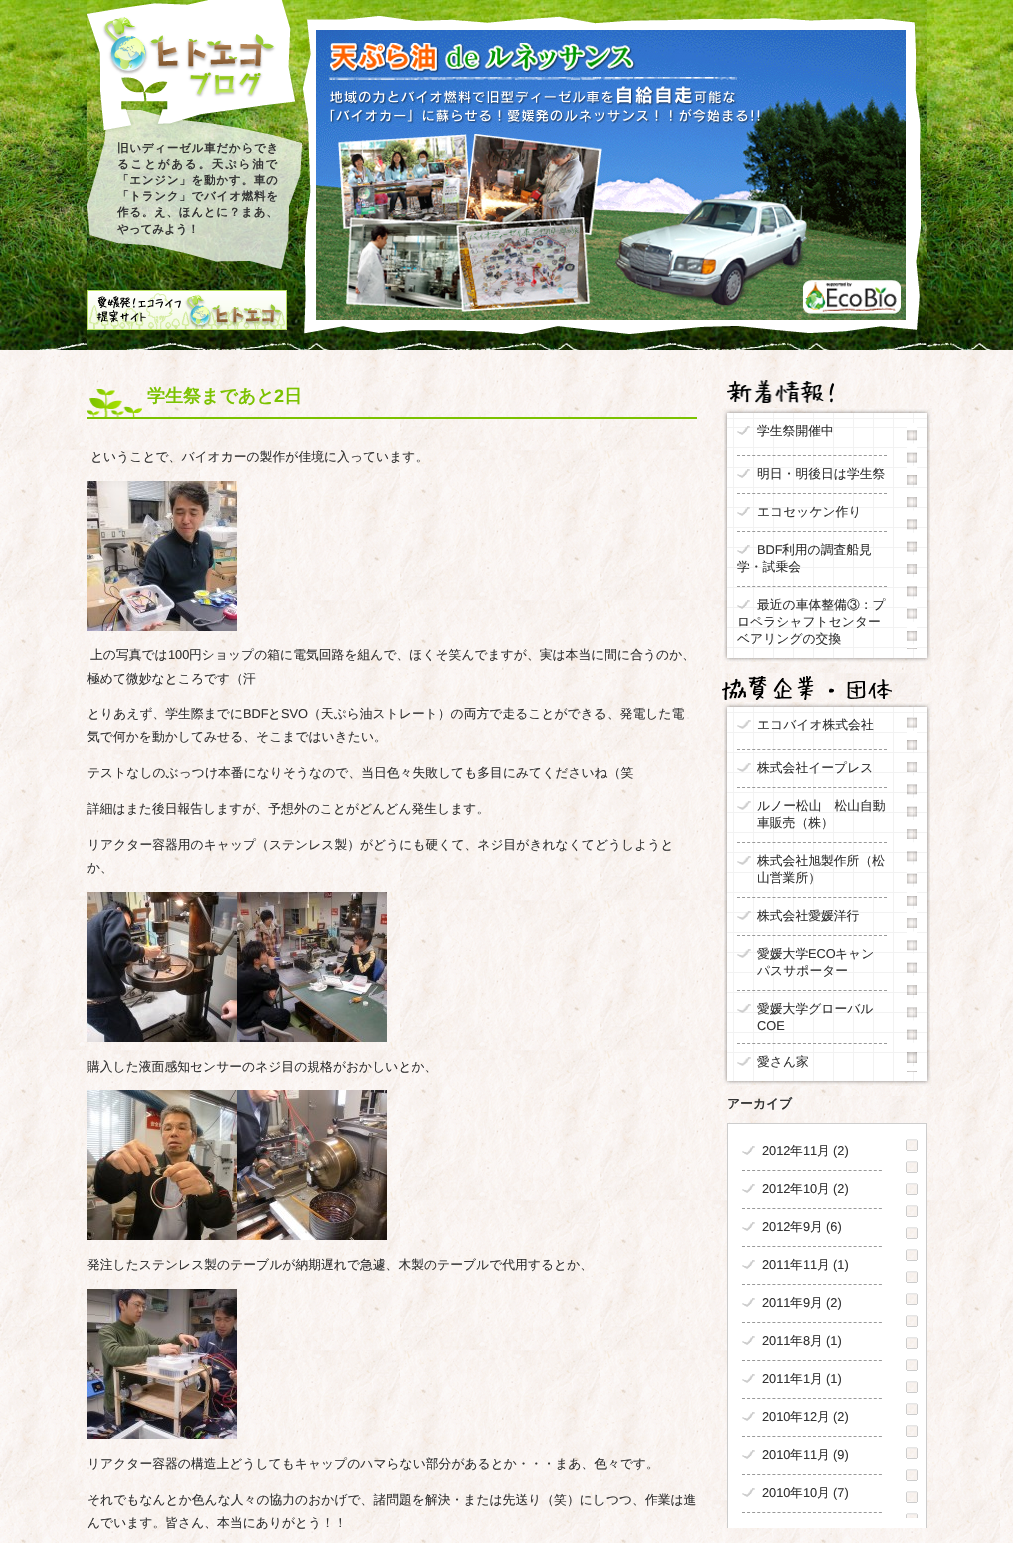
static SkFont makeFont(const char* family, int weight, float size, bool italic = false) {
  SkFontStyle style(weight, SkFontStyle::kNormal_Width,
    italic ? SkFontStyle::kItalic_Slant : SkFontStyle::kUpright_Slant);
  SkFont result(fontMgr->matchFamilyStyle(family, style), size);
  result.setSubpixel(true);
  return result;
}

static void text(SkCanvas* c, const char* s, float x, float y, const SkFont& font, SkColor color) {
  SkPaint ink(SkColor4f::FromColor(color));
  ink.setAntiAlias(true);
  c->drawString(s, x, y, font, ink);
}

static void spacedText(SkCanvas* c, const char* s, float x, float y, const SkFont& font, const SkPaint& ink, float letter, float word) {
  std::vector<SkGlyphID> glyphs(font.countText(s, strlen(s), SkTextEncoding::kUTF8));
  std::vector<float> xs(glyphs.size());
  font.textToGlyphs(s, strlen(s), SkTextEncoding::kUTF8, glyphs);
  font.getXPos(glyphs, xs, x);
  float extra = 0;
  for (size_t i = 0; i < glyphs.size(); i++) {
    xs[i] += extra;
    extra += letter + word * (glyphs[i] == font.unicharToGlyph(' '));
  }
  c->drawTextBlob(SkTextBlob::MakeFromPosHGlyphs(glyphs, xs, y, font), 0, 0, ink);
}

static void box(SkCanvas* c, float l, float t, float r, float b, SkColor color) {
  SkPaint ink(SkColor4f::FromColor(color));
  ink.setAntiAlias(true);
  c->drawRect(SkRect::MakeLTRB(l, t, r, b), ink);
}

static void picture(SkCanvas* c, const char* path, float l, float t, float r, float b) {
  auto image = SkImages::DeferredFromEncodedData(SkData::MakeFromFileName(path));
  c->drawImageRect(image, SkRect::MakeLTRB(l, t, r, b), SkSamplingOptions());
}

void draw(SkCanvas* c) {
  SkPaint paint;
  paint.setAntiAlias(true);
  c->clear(0xffffffff);
  picture(c, "img_01.png", 0, 350, 1013, 1543);
  picture(c, "img_02.png", 0, 0, 1013, 350);
  picture(c, "img_03.png", 87, 0, 927, 350);
  picture(c, "img_06.png", 86, 108, 303, 269);
  picture(c, "img_04.png", 86, 0, 296, 132);
  picture(c, "img_05.png", 301, 14, 923, 335);
  SkFont face1 = makeFont("WenQuanYi Zen Hei", 700, 11.5f);
  paint.setColor(0xff333333);
  spacedText(c, "旧いディーゼル車だからでき", 117, 152, face1, paint, 0.75f, 0);
  spacedText(c, "ることがある。天ぷら油で", 117, 168, face1, paint, 1.8f, 0);
  spacedText(c, "「エンジン」を動かす。車の", 117, 184, face1, paint, 0.75f, 0);
  spacedText(c, "「トランク」でバイオ燃料を", 117, 200, face1, paint, 0.75f, 0);
  spacedText(c, "作る。え、ほんとに？まあ、", 117, 216, face1, paint, 0.75f, 0);
  text(c, "やってみよう！", 117, 233, face1, 0xff333333);
  picture(c, "img_07.png", 87, 290, 287, 330);
  picture(c, "img_08.png", 87, 389, 142, 417);
  box(c, 87, 417, 697, 419, 0xff7bc200);
  SkFont face2 = makeFont("WenQuanYi Zen Hei", 700, 18);
  text(c, "学生祭まであと", 147, 402, face2, 0xff7bc200);
  SkFont face3 = makeFont("Liberation Sans", 700, 18);
  text(c, "2", 274, 402, face3, 0xff7bc200);
  text(c, "日", 284, 402, face2, 0xff7bc200);
  SkFont face4 = makeFont("WenQuanYi Zen Hei", 500, 12.8f);
  text(c, "ということで、バイオカーの製作が佳境に入っています。", 90, 461, face4, 0xff333333);
  picture(c, "img_09.png", 87, 481, 237, 631);
  text(c, "上の写真では", 90, 659, face4, 0xff333333);
  SkFont face5 = makeFont("Liberation Sans", 400, 12.8f);
  text(c, "100", 168, 659, face5, 0xff333333);
  text(c, "円ショップの箱に電気回路を組んで、ほくそ笑んでますが、実は本当に間に合うのか、", 189, 659, face4, 0xff333333);
  text(c, "極めて微妙なところです（汗", 87, 683, face4, 0xff333333);
  text(c, "とりあえず、学生際までに", 87, 718, face4, 0xff333333);
  text(c, "BDF", 243, 718, face5, 0xff333333);
  text(c, "と", 268, 718, face4, 0xff333333);
  text(c, "SVO", 281, 718, face5, 0xff333333);
  text(c, "（天ぷら油ストレート）の両方で走ることができる、発電した電", 308, 718, face4, 0xff333333);
  text(c, "気で何かを動かしてみせる、そこまではいきたい。", 87, 741, face4, 0xff333333);
  text(c, "テストなしのぶっつけ本番になりそうなので、当日色々失敗しても多目にみてくださいね（笑", 87, 777, face4, 0xff333333);
  text(c, "詳細はまた後日報告しますが、予想外のことがどんどん発生します。", 87, 813, face4, 0xff333333);
  text(c, "リアクター容器用のキャップ（ステンレス製）がどうにも硬くて、ネジ目がきれなくてどうしようと", 87, 849, face4, 0xff333333);
  text(c, "か、", 87, 872, face4, 0xff333333);
  picture(c, "img_10.png", 87, 892, 237, 1042);
  picture(c, "img_11.png", 237, 892, 387, 1042);
  text(c, "購入した液面感知センサーのネジ目の規格がおかしいとか、", 87, 1071, face4, 0xff333333);
  picture(c, "img_12.png", 87, 1090, 237, 1240);
  picture(c, "img_13.png", 237, 1090, 387, 1240);
  text(c, "発注したステンレス製のテーブルが納期遅れで急遽、木製のテーブルで代用するとか、", 87, 1269, face4, 0xff333333);
  picture(c, "img_14.png", 87, 1289, 237, 1439);
  text(c, "リアクター容器の構造上どうしてもキャップのハマらない部分があるとか・・・まあ、色々です。", 87, 1468, face4, 0xff333333);
  text(c, "それでもなんとか色んな人々の協力のおかげで、諸問題を解決・または先送り（笑）にしつつ、作業は進", 87, 1504, face4, 0xff333333);
  text(c, "んでいます。皆さん、本当にありがとう！！", 87, 1527, face4, 0xff333333);
  picture(c, "img_15.png", 727, 380, 834, 403);
  picture(c, "img_16.png", 724, 423, 930, 648);
  picture(c, "img_17.png", 722, 648, 932, 663);
  picture(c, "img_18.png", 722, 408, 932, 423);
  picture(c, "img_19.png", 737, 426, 750, 435);
  text(c, "学生祭開催中", 757, 435, face4, 0xff333333);
  paint.setStyle(SkPaint::kStroke_Style);
  paint.setStrokeWidth(1);
  paint.setColor(0xff999999);
  paint.setPathEffect(SkDashPathEffect::Make({{3, 2.07f}}, 0));
  c->drawPath(SkPathBuilder().moveTo(737, 455.5f).lineTo(887, 455.5f).detach(), paint);
  paint.setPathEffect(nullptr);
  picture(c, "img_20.png", 737, 469, 750, 478);
  text(c, "明日・明後日は学生祭", 757, 478, face4, 0xff333333);
  paint.setPathEffect(SkDashPathEffect::Make({{3, 2.07f}}, 0));
  c->drawPath(SkPathBuilder().moveTo(737, 493.5f).lineTo(887, 493.5f).detach(), paint);
  paint.setPathEffect(nullptr);
  picture(c, "img_21.png", 737, 507, 750, 516);
  text(c, "エコセッケン作り", 757, 516, face4, 0xff333333);
  paint.setPathEffect(SkDashPathEffect::Make({{3, 2.07f}}, 0));
  c->drawPath(SkPathBuilder().moveTo(737, 531.5f).lineTo(887, 531.5f).detach(), paint);
  paint.setPathEffect(nullptr);
  picture(c, "img_22.png", 737, 545, 750, 554);
  text(c, "BDF", 757, 554, face5, 0xff333333);
  text(c, "利用の調査船見", 782, 554, face4, 0xff333333);
  text(c, "学・試乗会", 737, 571, face4, 0xff333333);
  paint.setPathEffect(SkDashPathEffect::Make({{3, 2.07f}}, 0));
  c->drawPath(SkPathBuilder().moveTo(737, 586.5f).lineTo(887, 586.5f).detach(), paint);
  paint.setPathEffect(nullptr);
  picture(c, "img_23.png", 737, 600, 750, 609);
  text(c, "最近の車体整備③：プ", 757, 609, face4, 0xff333333);
  text(c, "ロペラシャフトセンター", 737, 626, face4, 0xff333333);
  text(c, "ベアリングの交換", 737, 643, face4, 0xff333333);
  picture(c, "img_24.png", 724, 673, 930, 1071);
  picture(c, "img_25.png", 722, 673, 932, 702);
  picture(c, "img_17.png", 722, 1071, 932, 1086);
  picture(c, "img_18.png", 722, 702, 932, 717);
  picture(c, "img_26.png", 737, 720, 751, 729);
  text(c, "エコバイオ株式会社", 757, 729, face4, 0xff333333);
  paint.setPathEffect(SkDashPathEffect::Make({{3, 2.07f}}, 0));
  c->drawPath(SkPathBuilder().moveTo(737, 749.5f).lineTo(887, 749.5f).detach(), paint);
  paint.setPathEffect(nullptr);
  picture(c, "img_26.png", 737, 763, 751, 772);
  text(c, "株式会社イープレス", 757, 772, face4, 0xff333333);
  paint.setPathEffect(SkDashPathEffect::Make({{3, 2.07f}}, 0));
  c->drawPath(SkPathBuilder().moveTo(737, 787.5f).lineTo(887, 787.5f).detach(), paint);
  paint.setPathEffect(nullptr);
  picture(c, "img_26.png", 737, 801, 751, 810);
  text(c, "ルノー松山　松山自動", 757, 810, face4, 0xff333333);
  text(c, "車販売（株）", 757, 827, face4, 0xff333333);
  paint.setPathEffect(SkDashPathEffect::Make({{3, 2.07f}}, 0));
  c->drawPath(SkPathBuilder().moveTo(737, 842.5f).lineTo(887, 842.5f).detach(), paint);
  paint.setPathEffect(nullptr);
  picture(c, "img_26.png", 737, 856, 751, 865);
  text(c, "株式会社旭製作所（松", 757, 865, face4, 0xff333333);
  text(c, "山営業所）", 757, 882, face4, 0xff333333);
  paint.setPathEffect(SkDashPathEffect::Make({{3, 2.07f}}, 0));
  c->drawPath(SkPathBuilder().moveTo(737, 897.5f).lineTo(887, 897.5f).detach(), paint);
  paint.setPathEffect(nullptr);
  picture(c, "img_27.png", 737, 911, 751, 920);
  text(c, "株式会社愛媛洋行", 757, 920, face4, 0xff333333);
  paint.setPathEffect(SkDashPathEffect::Make({{3, 2.07f}}, 0));
  c->drawPath(SkPathBuilder().moveTo(737, 935.5f).lineTo(887, 935.5f).detach(), paint);
  paint.setPathEffect(nullptr);
  picture(c, "img_28.png", 737, 949, 751, 958);
  text(c, "愛媛大学", 757, 958, face4, 0xff333333);
  text(c, "ECO", 808, 958, face5, 0xff333333);
  text(c, "キャン", 835, 958, face4, 0xff333333);
  text(c, "パスサポーター", 757, 975, face4, 0xff333333);
  paint.setPathEffect(SkDashPathEffect::Make({{3, 2.07f}}, 0));
  c->drawPath(SkPathBuilder().moveTo(737, 990.5f).lineTo(887, 990.5f).detach(), paint);
  paint.setPathEffect(nullptr);
  picture(c, "img_29.png", 737, 1004, 751, 1013);
  text(c, "愛媛大学グローバル", 757, 1013, face4, 0xff333333);
  text(c, "COE", 757, 1030, face5, 0xff333333);
  paint.setPathEffect(SkDashPathEffect::Make({{3, 2.07f}}, 0));
  c->drawPath(SkPathBuilder().moveTo(737, 1043.5f).lineTo(887, 1043.5f).detach(), paint);
  paint.setPathEffect(nullptr);
  picture(c, "img_26.png", 737, 1057, 751, 1066);
  text(c, "愛さん家", 757, 1066, face4, 0xff333333);
  picture(c, "img_30.png", 727, 1129, 927, 1528);
  picture(c, "img_31.png", 727, 1096, 927, 1129);
  SkFont face6 = makeFont("WenQuanYi Zen Hei", 700, 12.8f);
  text(c, "アーカイブ", 727, 1108, face6, 0xff333333);
  box(c, 906, 1518, 918, 1525, 0xffffffff);
  paint.setPathEffect(SkDashPathEffect::Make({{3, 2.07f}}, 0));
  c->drawPath(SkPathBuilder().moveTo(742, 1170.5f).lineTo(882, 1170.5f).detach(), paint);
  paint.setPathEffect(nullptr);
  picture(c, "img_20.png", 742, 1146, 755, 1155);
  text(c, "2012", 762, 1155, face5, 0xff333333);
  text(c, "年", 790, 1155, face4, 0xff333333);
  text(c, "11", 803, 1155, face5, 0xff333333);
  text(c, "月", 817, 1155, face4, 0xff333333);
  text(c, "(2)", 833, 1155, face5, 0xff333333);
  paint.setPathEffect(SkDashPathEffect::Make({{3, 2.07f}}, 0));
  c->drawPath(SkPathBuilder().moveTo(742, 1208.5f).lineTo(882, 1208.5f).detach(), paint);
  paint.setPathEffect(nullptr);
  picture(c, "img_20.png", 742, 1184, 755, 1193);
  text(c, "2012", 762, 1193, face5, 0xff333333);
  text(c, "年", 790, 1193, face4, 0xff333333);
  text(c, "10", 803, 1193, face5, 0xff333333);
  text(c, "月", 817, 1193, face4, 0xff333333);
  text(c, "(2)", 833, 1193, face5, 0xff333333);
  paint.setPathEffect(SkDashPathEffect::Make({{3, 2.07f}}, 0));
  c->drawPath(SkPathBuilder().moveTo(742, 1246.5f).lineTo(882, 1246.5f).detach(), paint);
  paint.setPathEffect(nullptr);
  picture(c, "img_20.png", 742, 1222, 755, 1231);
  text(c, "2012", 762, 1231, face5, 0xff333333);
  text(c, "年", 790, 1231, face4, 0xff333333);
  text(c, "9", 803, 1231, face5, 0xff333333);
  text(c, "月", 810, 1231, face4, 0xff333333);
  text(c, "(6)", 826, 1231, face5, 0xff333333);
  paint.setPathEffect(SkDashPathEffect::Make({{3, 2.07f}}, 0));
  c->drawPath(SkPathBuilder().moveTo(742, 1284.5f).lineTo(882, 1284.5f).detach(), paint);
  paint.setPathEffect(nullptr);
  picture(c, "img_20.png", 742, 1260, 755, 1269);
  text(c, "2011", 762, 1269, face5, 0xff333333);
  text(c, "年", 790, 1269, face4, 0xff333333);
  text(c, "11", 803, 1269, face5, 0xff333333);
  text(c, "月", 817, 1269, face4, 0xff333333);
  text(c, "(1)", 833, 1269, face5, 0xff333333);
  paint.setPathEffect(SkDashPathEffect::Make({{3, 2.07f}}, 0));
  c->drawPath(SkPathBuilder().moveTo(742, 1322.5f).lineTo(882, 1322.5f).detach(), paint);
  paint.setPathEffect(nullptr);
  picture(c, "img_20.png", 742, 1298, 755, 1307);
  text(c, "2011", 762, 1307, face5, 0xff333333);
  text(c, "年", 790, 1307, face4, 0xff333333);
  text(c, "9", 803, 1307, face5, 0xff333333);
  text(c, "月", 810, 1307, face4, 0xff333333);
  text(c, "(2)", 826, 1307, face5, 0xff333333);
  paint.setPathEffect(SkDashPathEffect::Make({{3, 2.07f}}, 0));
  c->drawPath(SkPathBuilder().moveTo(742, 1360.5f).lineTo(882, 1360.5f).detach(), paint);
  paint.setPathEffect(nullptr);
  picture(c, "img_20.png", 742, 1336, 755, 1345);
  text(c, "2011", 762, 1345, face5, 0xff333333);
  text(c, "年", 790, 1345, face4, 0xff333333);
  text(c, "8", 803, 1345, face5, 0xff333333);
  text(c, "月", 810, 1345, face4, 0xff333333);
  text(c, "(1)", 826, 1345, face5, 0xff333333);
  paint.setPathEffect(SkDashPathEffect::Make({{3, 2.07f}}, 0));
  c->drawPath(SkPathBuilder().moveTo(742, 1398.5f).lineTo(882, 1398.5f).detach(), paint);
  paint.setPathEffect(nullptr);
  picture(c, "img_20.png", 742, 1374, 755, 1383);
  text(c, "2011", 762, 1383, face5, 0xff333333);
  text(c, "年", 790, 1383, face4, 0xff333333);
  text(c, "1", 803, 1383, face5, 0xff333333);
  text(c, "月", 810, 1383, face4, 0xff333333);
  text(c, "(1)", 826, 1383, face5, 0xff333333);
  paint.setPathEffect(SkDashPathEffect::Make({{3, 2.07f}}, 0));
  c->drawPath(SkPathBuilder().moveTo(742, 1436.5f).lineTo(882, 1436.5f).detach(), paint);
  paint.setPathEffect(nullptr);
  picture(c, "img_20.png", 742, 1412, 755, 1421);
  text(c, "2010", 762, 1421, face5, 0xff333333);
  text(c, "年", 790, 1421, face4, 0xff333333);
  text(c, "12", 803, 1421, face5, 0xff333333);
  text(c, "月", 817, 1421, face4, 0xff333333);
  text(c, "(2)", 833, 1421, face5, 0xff333333);
  paint.setPathEffect(SkDashPathEffect::Make({{3, 2.07f}}, 0));
  c->drawPath(SkPathBuilder().moveTo(742, 1474.5f).lineTo(882, 1474.5f).detach(), paint);
  paint.setPathEffect(nullptr);
  picture(c, "img_20.png", 742, 1450, 755, 1459);
  text(c, "2010", 762, 1459, face5, 0xff333333);
  text(c, "年", 790, 1459, face4, 0xff333333);
  text(c, "11", 803, 1459, face5, 0xff333333);
  text(c, "月", 817, 1459, face4, 0xff333333);
  text(c, "(9)", 833, 1459, face5, 0xff333333);
  paint.setPathEffect(SkDashPathEffect::Make({{3, 2.07f}}, 0));
  c->drawPath(SkPathBuilder().moveTo(742, 1512.5f).lineTo(882, 1512.5f).detach(), paint);
  paint.setPathEffect(nullptr);
  picture(c, "img_20.png", 742, 1488, 755, 1497);
  text(c, "2010", 762, 1497, face5, 0xff333333);
  text(c, "年", 790, 1497, face4, 0xff333333);
  text(c, "10", 803, 1497, face5, 0xff333333);
  text(c, "月", 817, 1497, face4, 0xff333333);
  text(c, "(7)", 833, 1497, face5, 0xff333333);
}
